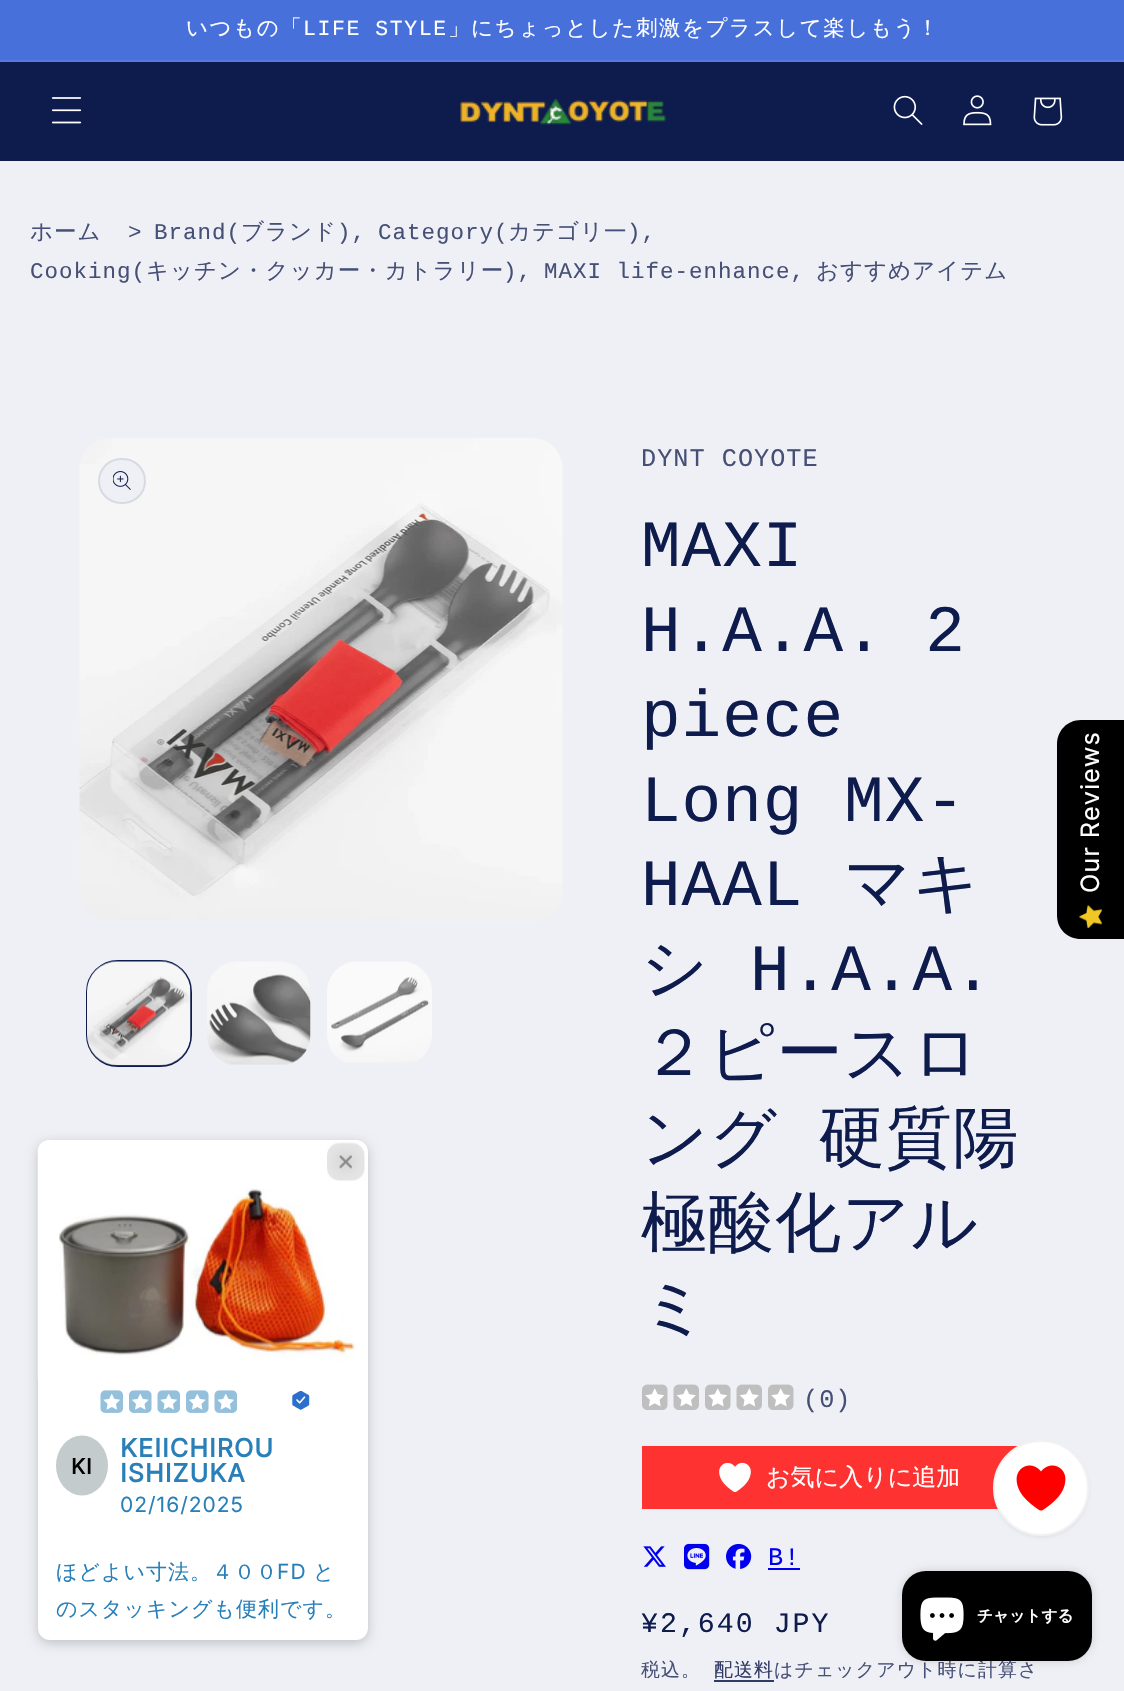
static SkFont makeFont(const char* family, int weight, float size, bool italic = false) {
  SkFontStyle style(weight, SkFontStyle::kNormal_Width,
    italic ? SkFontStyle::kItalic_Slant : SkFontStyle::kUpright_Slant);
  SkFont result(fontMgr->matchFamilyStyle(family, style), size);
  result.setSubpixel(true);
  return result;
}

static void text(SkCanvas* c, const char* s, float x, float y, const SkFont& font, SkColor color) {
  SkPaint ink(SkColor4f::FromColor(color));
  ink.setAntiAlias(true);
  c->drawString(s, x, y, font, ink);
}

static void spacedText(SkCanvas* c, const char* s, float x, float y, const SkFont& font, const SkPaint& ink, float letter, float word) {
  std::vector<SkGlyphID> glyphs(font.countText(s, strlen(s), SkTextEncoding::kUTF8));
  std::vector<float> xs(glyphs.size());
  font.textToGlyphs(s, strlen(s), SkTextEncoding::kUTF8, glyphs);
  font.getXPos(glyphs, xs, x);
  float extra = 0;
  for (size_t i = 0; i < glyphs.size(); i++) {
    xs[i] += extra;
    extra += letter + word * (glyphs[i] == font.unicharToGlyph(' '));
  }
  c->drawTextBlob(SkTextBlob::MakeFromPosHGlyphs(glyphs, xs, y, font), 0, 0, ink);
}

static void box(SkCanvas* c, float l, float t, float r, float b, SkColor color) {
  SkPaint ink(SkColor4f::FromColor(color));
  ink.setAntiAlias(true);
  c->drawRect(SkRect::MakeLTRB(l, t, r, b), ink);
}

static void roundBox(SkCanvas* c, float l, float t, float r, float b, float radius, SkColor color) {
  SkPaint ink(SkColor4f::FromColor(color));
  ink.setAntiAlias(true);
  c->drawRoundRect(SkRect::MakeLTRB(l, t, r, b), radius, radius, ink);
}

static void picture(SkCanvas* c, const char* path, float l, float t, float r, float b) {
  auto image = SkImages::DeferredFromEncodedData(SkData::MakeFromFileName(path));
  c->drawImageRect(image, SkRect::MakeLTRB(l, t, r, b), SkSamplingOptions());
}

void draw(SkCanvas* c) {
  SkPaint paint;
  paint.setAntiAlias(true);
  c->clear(0xffeff0f5);
  box(c, 0, 0, 1124, 60, 0xff4770db);
  box(c, 0, 60, 1124, 62, 0xff567bde);
  SkFont face1 = makeFont("WenQuanYi Zen Hei", 500, 21.45f);
  paint.setColor(0xffffffff);
  spacedText(c, "いつもの「", 186, 35, face1, paint, 1.6f, 0);
  SkFont face2 = makeFont("Liberation Mono", 400, 21.45f);
  spacedText(c, "LIFE STYLE", 303, 35, face2, paint, 1.6f, 0);
  spacedText(c, "」にちょっとした刺激をプラスして楽しもう！", 448, 35, face1, paint, 1.6f, 0);
  box(c, 0, 62, 1124, 161, 0xff0e1b4d);
  picture(c, "img_01.png", 51, 97, 82, 124);
  picture(c, "img_02.png", 460, 98, 667, 125);
  picture(c, "img_03.png", 893, 95, 923, 125);
  picture(c, "img_04.png", 963, 95, 992, 126);
  picture(c, "img_05.png", 1033, 97, 1063, 126);
  SkFont face3 = makeFont("WenQuanYi Zen Hei", 500, 22.5f);
  paint.setColor(0xff465077);
  spacedText(c, "ホーム", 30, 239, face3, paint, 1, 0);
  SkFont face4 = makeFont("Liberation Mono", 400, 22.5f);
  spacedText(c, ">", 128, 239, face4, paint, 1, 0);
  spacedText(c, "Brand(", 154, 239, face4, paint, 1, 0);
  spacedText(c, "ブランド", 241, 239, face3, paint, 1, 0);
  spacedText(c, "),", 337, 239, face4, paint, 1, 0);
  spacedText(c, "Category(", 378, 239, face4, paint, 1, 0);
  spacedText(c, "カテゴリ一", 508, 239, face3, paint, 1, 0);
  spacedText(c, "),", 627, 239, face4, paint, 1, 0);
  spacedText(c, "Cooking(", 30, 278, face4, paint, 1, 0);
  spacedText(c, "キッチン・クッカー・カトラリー", 146, 278, face3, paint, 1, 0);
  spacedText(c, "),", 503, 278, face4, paint, 1, 0);
  spacedText(c, "MAXI life-enhance,", 544, 278, face4, paint, 1, 0);
  spacedText(c, "おすすめアイテム", 816, 278, face3, paint, 1, 0);
  picture(c, "img_06.png", 79, 438, 563, 921);
  roundBox(c, 98, 458, 146, 504, 23, 0xffeff0f5);
  paint.setStyle(SkPaint::kStroke_Style);
  paint.setStrokeWidth(2);
  paint.setColor(0x1a0e1b4d);
  c->drawRoundRect(SkRect::MakeLTRB(99, 459, 145, 503), 22, 22, paint);
  picture(c, "img_07.png", 113, 471, 131, 490);
  paint.setColor(0xff0e1b4d);
  c->drawRoundRect(SkRect::MakeLTRB(87, 961, 191, 1066), 31, 31, paint);
  picture(c, "img_08.png", 87, 961, 191, 1066);
  picture(c, "img_09.png", 207, 961, 311, 1065);
  picture(c, "img_10.png", 327, 961, 432, 1063);
  SkFont face5 = makeFont("Liberation Mono", 400, 25.25f);
  paint.setStyle(SkPaint::kFill_Style);
  paint.setColor(0xff465077);
  spacedText(c, "DYNT COYOTE", 641, 466, face5, paint, 1, 0);
  SkFont face6 = makeFont("Liberation Mono", 400, 66);
  paint.setColor(0xff0e1b4d);
  spacedText(c, "MAXI", 641, 566, face6, paint, 1, 0);
  spacedText(c, "H.A.A. 2", 641, 651, face6, paint, 1, 0);
  spacedText(c, "piece", 641, 736, face6, paint, 1, 0);
  spacedText(c, "Long MX-", 641, 821, face6, paint, 1, 0);
  spacedText(c, "HAAL", 641, 905, face6, paint, 1, 0);
  SkFont face7 = makeFont("WenQuanYi Zen Hei", 500, 66);
  spacedText(c, "マキ", 844, 905, face7, paint, 1, 0);
  spacedText(c, "シ", 641, 990, face7, paint, 1, 0);
  spacedText(c, "H.A.A.", 750, 990, face6, paint, 1, 0);
  spacedText(c, "２ピースロ", 641, 1075, face7, paint, 1, 0);
  spacedText(c, "ング 硬質陽", 641, 1160, face7, paint, 1, 20);
  spacedText(c, "極酸化アル", 641, 1245, face7, paint, 1, 0);
  spacedText(c, "ミ", 641, 1330, face7, paint, 1, 0);
  picture(c, "img_11.png", 642, 1384, 668, 1410);
  picture(c, "img_12.png", 645, 1388, 665, 1407);
  picture(c, "img_13.png", 673, 1384, 699, 1410);
  picture(c, "img_14.png", 676, 1388, 696, 1407);
  picture(c, "img_11.png", 705, 1384, 731, 1410);
  picture(c, "img_12.png", 708, 1388, 728, 1407);
  picture(c, "img_13.png", 736, 1384, 762, 1410);
  picture(c, "img_14.png", 739, 1388, 759, 1407);
  picture(c, "img_11.png", 768, 1384, 794, 1410);
  picture(c, "img_12.png", 771, 1388, 791, 1407);
  paint.setColor(0xff465077);
  spacedText(c, "(0)", 803, 1407, face5, paint, 1, 0);
  box(c, 642, 1446, 1018, 1509, 0xffff3232);
  picture(c, "img_15.png", 719, 1462, 751, 1492);
  SkFont face8 = makeFont("WenQuanYi Zen Hei", 500, 24);
  text(c, "お気に入りに追加", 766, 1485, face8, 0xffffffff);
  picture(c, "img_16.png", 643, 1546, 666, 1567);
  picture(c, "img_17.png", 684, 1543, 710, 1570);
  picture(c, "img_18.png", 726, 1543, 752, 1569);
  paint.setColor(0xff0000ee);
  spacedText(c, "B!", 768, 1565, face5, paint, 1, 0);
  box(c, 768, 1568, 800, 1570, 0xff0000ee);
  SkFont face9 = makeFont("Liberation Mono", 400, 28.25f);
  paint.setColor(0xff0e1b4d);
  spacedText(c, "¥2,640 JPY", 641, 1632, face9, paint, 2, 0);
  SkFont face10 = makeFont("WenQuanYi Zen Hei", 500, 18.9f);
  paint.setColor(0xff465077);
  spacedText(c, "税込。", 641, 1676, face10, paint, 1.1f, 0);
  paint.setColor(0xff303b66);
  spacedText(c, "配送料", 714, 1676, face10, paint, 1.1f, 0);
  box(c, 714, 1680, 774, 1682, 0xff303b66);
  paint.setColor(0xff465077);
  spacedText(c, "はチェックアウト時に計算さ", 774, 1676, face10, paint, 1.1f, 0);
  paint.setColor(0xff000000);
  c->drawPath(SkPathBuilder().moveTo(1057, 915).lineTo(1057, 744).cubicTo(1057, 731, 1067, 720, 1081, 720).lineTo(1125, 720).lineTo(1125, 939).lineTo(1081, 939).cubicTo(1067, 939, 1057, 929, 1057, 915).close().detach(), paint);
  SkFont face11 = makeFont("Inter", 400, 25.25f);
  paint.setColor(0xffffffff);
  c->save();
  c->rotate(-90, 1099, 893);
  spacedText(c, "Our Reviews", 1099, 893, face11, paint, 1, 0);
  c->restore();
  picture(c, "img_19.png", 1079, 905, 1102, 929);
  paint.setColor(0x33000000);
  paint.setMaskFilter(SkMaskFilter::MakeBlur(kNormal_SkBlurStyle, 6));
  c->drawRoundRect(SkRect::MakeLTRB(38, 1143, 368, 1643), 12, 12, paint);
  paint.setMaskFilter(nullptr);
  roundBox(c, 38, 1140, 368, 1640, 12, 0xffffffff);
  picture(c, "img_20.png", 37, 1140, 355, 1380);
  picture(c, "img_21.png", 327, 1142, 365, 1181);
  picture(c, "img_22.png", 100, 1390, 123, 1413);
  picture(c, "img_23.png", 103, 1393, 120, 1410);
  picture(c, "img_24.png", 129, 1390, 152, 1413);
  picture(c, "img_25.png", 132, 1393, 149, 1410);
  picture(c, "img_22.png", 157, 1390, 180, 1413);
  picture(c, "img_23.png", 160, 1393, 177, 1410);
  picture(c, "img_24.png", 186, 1390, 209, 1413);
  picture(c, "img_25.png", 189, 1393, 206, 1410);
  picture(c, "img_22.png", 214, 1390, 237, 1413);
  picture(c, "img_23.png", 217, 1393, 234, 1410);
  picture(c, "img_26.png", 292, 1391, 310, 1410);
  paint.setColor(0xffc3cbcd);
  c->drawOval(SkRect::MakeLTRB(56, 1435.5f, 108, 1495.5f), paint);
  SkFont face12 = makeFont("Inter", 700, 21);
  paint.setColor(0xff000000);
  spacedText(c, "KI", 71, 1474, face12, paint, 1, 0);
  SkFont face13 = makeFont("Inter", 700, 25.25f);
  paint.setColor(0xff2980b9);
  spacedText(c, "KEIICHIROU", 120, 1457, face13, paint, 1, 0);
  spacedText(c, "ISHIZUKA", 120, 1482, face13, paint, 1, 0);
  SkFont face14 = makeFont("Inter", 400, 21);
  spacedText(c, "02/16/2025", 120, 1512, face14, paint, 1, 0);
  SkFont face15 = makeFont("WenQuanYi Zen Hei", 500, 21);
  spacedText(c, "ほどよい寸法。４００", 56, 1579, face15, paint, 1, 0);
  spacedText(c, "FD", 277, 1579, face14, paint, 1, 0);
  spacedText(c, "と", 313, 1579, face15, paint, 1, 0);
  spacedText(c, "のスタッキングも便利です。", 56, 1616, face15, paint, 1, 0);
  paint.setColor(0x0d000000);
  paint.setMaskFilter(SkMaskFilter::MakeBlur(kNormal_SkBlurStyle, 1.5f));
  c->drawRoundRect(SkRect::MakeLTRB(993, 1442, 1089, 1538), 48, 48, paint);
  paint.setMaskFilter(nullptr);
  paint.setColor(0xffffffff);
  c->drawCircle(1041, 1488, 47, paint);
  paint.setStyle(SkPaint::kStroke_Style);
  paint.setColor(0xfff2f2f2);
  c->drawCircle(1041, 1488, 47, paint);
  picture(c, "img_27.png", 1016, 1465, 1066, 1511);
  paint.setStyle(SkPaint::kFill_Style);
  paint.setColor(0x26000000);
  paint.setMaskFilter(SkMaskFilter::MakeBlur(kNormal_SkBlurStyle, 4));
  c->drawRoundRect(SkRect::MakeLTRB(902, 1571, 1092, 1661), 24, 24, paint);
  paint.setMaskFilter(nullptr);
  roundBox(c, 902, 1571, 1092, 1661, 24, 0xff000000);
  picture(c, "img_28.png", 920, 1597, 964, 1641);
  SkFont face16 = makeFont("WenQuanYi Zen Hei", 700, 15.75f);
  text(c, "チャットする", 977, 1621, face16, 0xffffffff);
}
